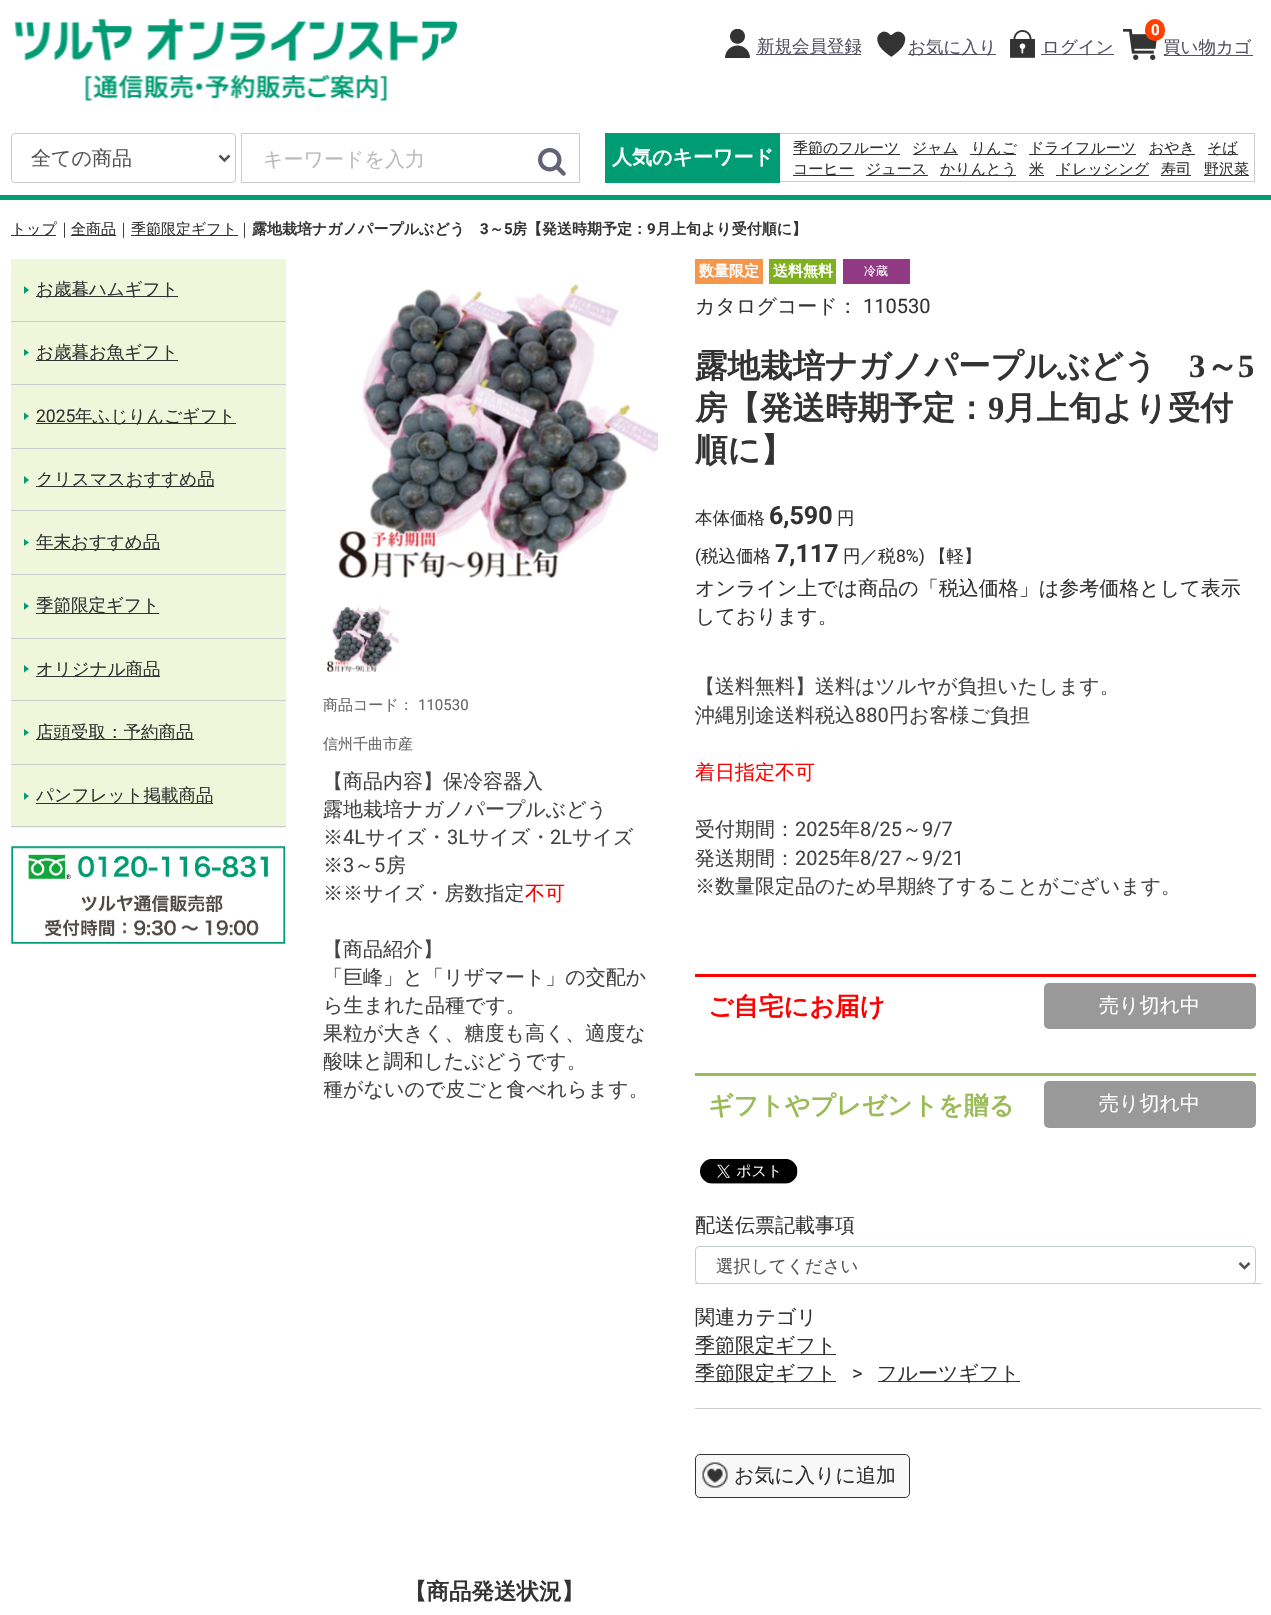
static SkFont makeFont(const char* family, int weight, float size, bool italic = false) {
  SkFontStyle style(weight, SkFontStyle::kNormal_Width,
    italic ? SkFontStyle::kItalic_Slant : SkFontStyle::kUpright_Slant);
  SkFont result(fontMgr->matchFamilyStyle(family, style), size);
  result.setSubpixel(true);
  return result;
}

static void text(SkCanvas* c, const char* s, float x, float y, const SkFont& font, SkColor color) {
  SkPaint ink(SkColor4f::FromColor(color));
  ink.setAntiAlias(true);
  c->drawString(s, x, y, font, ink);
}

static void box(SkCanvas* c, float l, float t, float r, float b, SkColor color) {
  SkPaint ink(SkColor4f::FromColor(color));
  ink.setAntiAlias(true);
  c->drawRect(SkRect::MakeLTRB(l, t, r, b), ink);
}

static void roundBox(SkCanvas* c, float l, float t, float r, float b, float radius, SkColor color) {
  SkPaint ink(SkColor4f::FromColor(color));
  ink.setAntiAlias(true);
  c->drawRoundRect(SkRect::MakeLTRB(l, t, r, b), radius, radius, ink);
}

static void picture(SkCanvas* c, const char* path, float l, float t, float r, float b) {
  auto image = SkImages::DeferredFromEncodedData(SkData::MakeFromFileName(path));
  c->drawImageRect(image, SkRect::MakeLTRB(l, t, r, b), SkSamplingOptions());
}

void draw(SkCanvas* c) {
  SkPaint paint;
  paint.setAntiAlias(true);
  c->clear(0xffffffff);
  box(c, 0, 195, 1271, 200, 0xff009c74);
  picture(c, "img_01.png", 14, 18, 457, 102);
  picture(c, "img_02.png", 725, 29, 750, 58);
  box(c, 756, 54, 861, 55, 0xff525263);
  SkFont face1 = makeFont("WenQuanYi Zen Hei", 500, 17.5f);
  text(c, "新規会員登録", 757, 52, face1, 0xff525263);
  picture(c, "img_03.png", 877, 31, 906, 57);
  box(c, 908, 54, 996, 55, 0xff525263);
  text(c, "お気に入り", 908, 53, face1, 0xff525263);
  picture(c, "img_04.png", 1010, 30, 1035, 58);
  box(c, 1041, 54, 1114, 55, 0xff525263);
  text(c, "ログイン", 1042, 53, face1, 0xff525263);
  picture(c, "img_05.png", 1123, 29, 1157, 60);
  box(c, 1164, 55, 1253, 56, 0xff525263);
  text(c, "買い物カゴ", 1163, 53, face1, 0xff525263);
  roundBox(c, 1145, 19, 1165, 41, 10, 0xffff4000);
  SkFont face2 = makeFont("Roboto", 700, 15);
  text(c, "0", 1151, 35, face2, 0xffffffff);
  paint.setStyle(SkPaint::kStroke_Style);
  paint.setStrokeWidth(1);
  paint.setColor(0xffcccccc);
  c->drawRoundRect(SkRect::MakeLTRB(11.5f, 133.5f, 235.5f, 182.5f), 3.5f, 3.5f, paint);
  paint.setStrokeWidth(2.5f);
  paint.setColor(0xff555555);
  c->drawPath(SkPathBuilder().moveTo(219.5f, 155.5f).lineTo(224.5f, 160.5f).lineTo(229.5f, 155.5f).detach(), paint);
  SkFont face3 = makeFont("WenQuanYi Zen Hei", 500, 20);
  text(c, "全ての商品", 31, 165, face3, 0xff555555);
  paint.setStrokeWidth(1);
  paint.setColor(0xffcccccc);
  c->drawRect(SkRect::MakeLTRB(241.5f, 133.5f, 579.5f, 182.5f), paint);
  text(c, "キーワードを入力", 263, 166, face3, 0xffbbbbbb);
  picture(c, "img_06.png", 538, 148, 566, 176);
  box(c, 605, 133, 780, 183, 0xff009c74);
  SkFont face4 = makeFont("WenQuanYi Zen Hei", 700, 20);
  text(c, "人気のキーワード", 612, 164, face4, 0xffffffff);
  box(c, 780, 133, 1255, 134, 0xffcccccc);
  box(c, 1254, 133, 1255, 183, 0xffcccccc);
  box(c, 780, 181, 1255, 182, 0xffcccccc);
  box(c, 793, 154, 900, 155, 0xff333333);
  SkFont face5 = makeFont("WenQuanYi Zen Hei", 500, 15);
  text(c, "季節のフルーツ", 793, 153, face5, 0xff333333);
  box(c, 913, 154, 958, 155, 0xff333333);
  text(c, "ジャム", 912, 153, face5, 0xff333333);
  box(c, 970, 154, 1016, 155, 0xff333333);
  text(c, "りんご", 971, 153, face5, 0xff333333);
  box(c, 1029, 154, 1136, 155, 0xff333333);
  text(c, "ドライフルーツ", 1029, 153, face5, 0xff333333);
  box(c, 1149, 154, 1195, 155, 0xff333333);
  text(c, "おやき", 1149, 153, face5, 0xff333333);
  box(c, 1208, 154, 1238, 155, 0xff333333);
  text(c, "そば", 1207, 153, face5, 0xff333333);
  box(c, 793, 175, 854, 176, 0xff333333);
  text(c, "コーヒー", 793, 174, face5, 0xff333333);
  box(c, 866, 175, 928, 176, 0xff333333);
  text(c, "ジュース", 866, 174, face5, 0xff333333);
  box(c, 940, 175, 1016, 176, 0xff333333);
  text(c, "かりんとう", 940, 174, face5, 0xff333333);
  box(c, 1029, 175, 1044, 176, 0xff333333);
  text(c, "米", 1029, 174, face5, 0xff333333);
  box(c, 1056, 175, 1149, 176, 0xff333333);
  text(c, "ドレッシング", 1057, 174, face5, 0xff333333);
  box(c, 1161, 175, 1191, 176, 0xff333333);
  text(c, "寿司", 1161, 174, face5, 0xff333333);
  box(c, 1204, 175, 1249, 176, 0xff333333);
  text(c, "野沢菜", 1204, 174, face5, 0xff333333);
  box(c, 11, 235, 56, 236, 0xff333333);
  text(c, "トップ｜", 11, 234, face5, 0xff333333);
  box(c, 71, 235, 116, 236, 0xff333333);
  text(c, "全商品｜", 71, 234, face5, 0xff333333);
  box(c, 131, 235, 238, 236, 0xff333333);
  text(c, "季節限定ギフト｜", 131, 234, face5, 0xff333333);
  SkFont face6 = makeFont("WenQuanYi Zen Hei", 700, 15);
  text(c, "露地栽培ナガノパープルぶどう", 252, 234, face6, 0xff333333);
  text(c, "3", 480, 234, face2, 0xff333333);
  text(c, "～", 489, 234, face6, 0xff333333);
  text(c, "5", 504, 234, face2, 0xff333333);
  text(c, "房【発送時期予定：", 512, 234, face6, 0xff333333);
  text(c, "9", 647, 234, face2, 0xff333333);
  text(c, "月上旬より受付順に】", 656, 234, face6, 0xff333333);
  box(c, 11, 259, 286, 384, 0xfff0f6da);
  box(c, 11, 321, 286, 322, 0xffcccccc);
  paint.setStyle(SkPaint::kFill_Style);
  paint.setColor(0xff009c74);
  c->drawPath(SkPathBuilder().moveTo(24, 294).lineTo(24, 286).lineTo(29, 290).close().detach(), paint);
  box(c, 36, 296, 178, 297, 0xff2e3233);
  text(c, "お歳暮ハムギフト", 36, 295, face1, 0xff333333);
  box(c, 11, 384, 286, 385, 0xffcccccc);
  c->drawPath(SkPathBuilder().moveTo(24, 356).lineTo(24, 349).lineTo(29, 352.5f).close().detach(), paint);
  box(c, 36, 360, 178, 361, 0xff2e3233);
  text(c, "お歳暮お魚ギフト", 36, 358, face1, 0xff333333);
  box(c, 11, 385, 286, 448, 0xfff0f6da);
  box(c, 11, 448, 286, 449, 0xffcccccc);
  c->drawPath(SkPathBuilder().moveTo(24, 420).lineTo(24, 412.5f).lineTo(29, 416).close().detach(), paint);
  SkFont face7 = makeFont("Roboto", 400, 17.5f);
  text(c, "2025", 36, 422, face7, 0xff333333);
  box(c, 36, 423, 236, 424, 0xff2e3233);
  text(c, "年ふじりんごギフト", 75, 422, face1, 0xff333333);
  box(c, 11, 449, 286, 510, 0xfff0f6da);
  box(c, 11, 510, 286, 511, 0xffcccccc);
  c->drawPath(SkPathBuilder().moveTo(24, 484).lineTo(24, 476).lineTo(29, 480).close().detach(), paint);
  box(c, 36, 486, 214, 487, 0xff2e3233);
  text(c, "クリスマスおすすめ品", 36, 485, face1, 0xff333333);
  box(c, 11, 511, 286, 574, 0xfff0f6da);
  box(c, 11, 574, 286, 575, 0xffcccccc);
  c->drawPath(SkPathBuilder().moveTo(24, 546).lineTo(24, 539).lineTo(29, 542.5f).close().detach(), paint);
  box(c, 36, 549, 160, 550, 0xff2e3233);
  text(c, "年末おすすめ品", 36, 548, face1, 0xff333333);
  box(c, 11, 575, 286, 638, 0xfff0f6da);
  box(c, 11, 638, 286, 639, 0xffcccccc);
  c->drawPath(SkPathBuilder().moveTo(24, 610).lineTo(24, 602.5f).lineTo(29, 606).close().detach(), paint);
  box(c, 36, 613, 159, 614, 0xff2e3233);
  text(c, "季節限定ギフト", 36, 611, face1, 0xff333333);
  box(c, 11, 639, 286, 700, 0xfff0f6da);
  box(c, 11, 700, 286, 701, 0xffcccccc);
  c->drawPath(SkPathBuilder().moveTo(24, 672.5f).lineTo(24, 665).lineTo(29, 669).close().detach(), paint);
  box(c, 36, 676, 160, 677, 0xff2e3233);
  text(c, "オリジナル商品", 36, 675, face1, 0xff333333);
  box(c, 11, 701, 286, 764, 0xfff0f6da);
  box(c, 11, 764, 286, 765, 0xffcccccc);
  c->drawPath(SkPathBuilder().moveTo(24, 736).lineTo(24, 729).lineTo(29, 732.5f).close().detach(), paint);
  box(c, 36, 739, 194, 740, 0xff2e3233);
  text(c, "店頭受取：予約商品", 36, 738, face1, 0xff333333);
  box(c, 11, 765, 286, 828, 0xfff0f6da);
  box(c, 11, 826, 286, 827, 0xffcccccc);
  c->drawPath(SkPathBuilder().moveTo(24, 800).lineTo(24, 792.5f).lineTo(29, 796).close().detach(), paint);
  box(c, 36, 803, 213, 804, 0xff2e3233);
  text(c, "パンフレット掲載商品", 36, 801, face1, 0xff333333);
  picture(c, "img_07.png", 10, 846, 286, 944);
  picture(c, "img_08.png", 338, 284, 658, 578);
  picture(c, "img_09.png", 327, 605, 399, 672);
  box(c, 695, 259, 763, 284, 0xfff5974a);
  text(c, "数量限定", 699, 276, face6, 0xffffffff);
  box(c, 769, 259, 836, 284, 0xff80af20);
  text(c, "送料無料", 773, 276, face6, 0xffffffff);
  box(c, 843, 259, 910, 284, 0xff913982);
  SkFont face8 = makeFont("WenQuanYi Zen Hei", 500, 12);
  text(c, "冷蔵", 864, 275, face8, 0xffffffff);
  text(c, "カタログコード：", 695, 313, face3, 0xff333333);
  SkFont face9 = makeFont("Roboto", 400, 20);
  text(c, "110530", 863, 313, face9, 0xff333333);
  SkFont face10 = makeFont("WenQuanYi Zen Hei", 700, 32.5f);
  text(c, "露地栽培ナガノパープルぶどう", 695, 377, face10, 0xff333333);
  SkFont face11 = makeFont("Liberation Serif", 700, 32.5f);
  text(c, "3", 1189, 377, face11, 0xff333333);
  text(c, "～", 1206, 377, face10, 0xff333333);
  text(c, "5", 1238, 377, face11, 0xff333333);
  text(c, "房【発送時期予定：", 695, 419, face10, 0xff333333);
  text(c, "9", 988, 419, face11, 0xff333333);
  text(c, "月上旬より受付", 1004, 419, face10, 0xff333333);
  text(c, "順に】", 695, 461, face10, 0xff333333);
  text(c, "本体価格", 695, 524, face1, 0xff333333);
  SkFont face12 = makeFont("Roboto", 700, 25);
  text(c, "6,590", 769, 524, face12, 0xff333333);
  text(c, "円", 837, 524, face1, 0xff333333);
  text(c, "(", 695, 562, face7, 0xff333333);
  text(c, "税込価格", 701, 562, face1, 0xff333333);
  text(c, "7,117", 775, 562, face12, 0xff333333);
  text(c, "円／税", 843, 562, face1, 0xff333333);
  text(c, "8%)", 896, 562, face7, 0xff333333);
  text(c, "【軽】", 929, 562, face1, 0xff333333);
  text(c, "オンライン上では商品の「税込価格」は参考価格として表示", 695, 595, face3, 0xff333333);
  text(c, "しております。", 695, 623, face3, 0xff333333);
  text(c, "【送料無料】送料はツルヤが負担いたします。", 695, 693, face3, 0xff444444);
  text(c, "沖縄別途送料税込", 695, 722, face3, 0xff444444);
  text(c, "880", 855, 722, face9, 0xff444444);
  text(c, "円お客様ご負担", 889, 722, face3, 0xff444444);
  text(c, "着日指定不可", 695, 779, face3, 0xffff0000);
  text(c, "受付期間：", 695, 836, face3, 0xff444444);
  text(c, "2025", 795, 836, face9, 0xff444444);
  text(c, "年", 840, 836, face3, 0xff444444);
  text(c, "8/25", 860, 836, face9, 0xff444444);
  text(c, "～", 902, 836, face3, 0xff444444);
  text(c, "9/7", 922, 836, face9, 0xff444444);
  text(c, "発送期間：", 695, 865, face3, 0xff444444);
  text(c, "2025", 795, 865, face9, 0xff444444);
  text(c, "年", 840, 865, face3, 0xff444444);
  text(c, "8/27", 860, 865, face9, 0xff444444);
  text(c, "～", 902, 865, face3, 0xff444444);
  text(c, "9/21", 922, 865, face9, 0xff444444);
  text(c, "※数量限定品のため早期終了することがございます。", 695, 893, face3, 0xff444444);
  box(c, 695, 974, 1256, 977, 0xffff0000);
  SkFont face13 = makeFont("WenQuanYi Zen Hei", 700, 25);
  text(c, "ご自宅にお届け", 708, 1015, face13, 0xffff0000);
  roundBox(c, 1044, 983, 1256, 1029, 5, 0xff999999);
  text(c, "売り切れ中", 1099, 1012, face3, 0xffffffff);
  box(c, 695, 1073, 1256, 1076, 0xff9bbb59);
  text(c, "ギフトやプレゼントを贈る", 708, 1114, face13, 0xff9bbb59);
  roundBox(c, 1044, 1081, 1256, 1128, 5, 0xff999999);
  text(c, "売り切れ中", 1099, 1110, face3, 0xffffffff);
  picture(c, "img_10.png", 700, 1159, 798, 1184);
  text(c, "配送伝票記載事項", 695, 1232, face3, 0xff333333);
  paint.setStyle(SkPaint::kStroke_Style);
  paint.setColor(0xffc4ccce);
  c->drawRoundRect(SkRect::MakeLTRB(695.5f, 1246.5f, 1255.5f, 1283.5f), 3.5f, 3.5f, paint);
  paint.setStrokeWidth(2.5f);
  paint.setColor(0xff555555);
  c->drawPath(SkPathBuilder().moveTo(1239.5f, 1263).lineTo(1244.5f, 1268).lineTo(1249.5f, 1263).detach(), paint);
  text(c, "選択してください", 716, 1272, face1, 0xff555555);
  text(c, "商品コード：", 323, 710, face5, 0xff666666);
  SkFont face14 = makeFont("Roboto", 400, 15);
  text(c, "110530", 418, 710, face14, 0xff666666);
  text(c, "信州千曲市産", 323, 749, face5, 0xff666666);
  text(c, "【商品内容】保冷容器入", 323, 788, face3, 0xff444444);
  text(c, "露地栽培ナガノパープルぶどう", 323, 816, face3, 0xff444444);
  text(c, "※", 323, 844, face3, 0xff444444);
  text(c, "4L", 343, 844, face9, 0xff444444);
  text(c, "サイズ・", 365, 844, face3, 0xff444444);
  text(c, "3L", 447, 844, face9, 0xff444444);
  text(c, "サイズ・", 469, 844, face3, 0xff444444);
  text(c, "2L", 550, 844, face9, 0xff444444);
  text(c, "サイズ", 572, 844, face3, 0xff444444);
  text(c, "※", 323, 872, face3, 0xff444444);
  text(c, "3", 343, 872, face9, 0xff444444);
  text(c, "～", 354, 872, face3, 0xff444444);
  text(c, "5", 374, 872, face9, 0xff444444);
  text(c, "房", 386, 872, face3, 0xff444444);
  text(c, "※※サイズ・房数指定", 323, 900, face3, 0xff444444);
  text(c, "不可", 525, 900, face3, 0xffff0000);
  text(c, "【商品紹介】", 323, 956, face3, 0xff444444);
  text(c, "「巨峰」と「リザマート」の交配か", 323, 984, face3, 0xff444444);
  text(c, "ら生まれた品種です。", 323, 1012, face3, 0xff444444);
  text(c, "果粒が大きく、糖度も高く、適度な", 323, 1040, face3, 0xff444444);
  c->save();
  c->clipRect(SkRect::MakeLTRB(324, 259, 1261, 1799));
  text(c, "酸味と調和したぶどうです。", 323, 1068, face3, 0xff444444);
  text(c, "種がないので皮ごと食べれらます。", 323, 1096, face3, 0xff444444);
  c->restore();
  box(c, 695, 1283, 1261, 1284, 0xffcccccc);
  box(c, 695, 1408, 1261, 1409, 0xffcccccc);
  text(c, "関連カテゴリ", 695, 1324, face3, 0xff333333);
  box(c, 695, 1354, 836, 1355, 0xff333333);
  text(c, "季節限定ギフト", 695, 1352, face3, 0xff333333);
  box(c, 695, 1381, 836, 1382, 0xff333333);
  text(c, "季節限定ギフト", 695, 1380, face3, 0xff333333);
  text(c, ">", 852, 1380, face9, 0xff333333);
  box(c, 878, 1381, 1020, 1382, 0xff333333);
  text(c, "フルーツギフト", 877, 1380, face3, 0xff333333);
  roundBox(c, 695, 1454, 910, 1498, 5, 0xfff8f8f8);
  picture(c, "img_11.png", 702, 1462, 728, 1488);
  paint.setStrokeWidth(1);
  paint.setColor(0xff333333);
  c->drawRoundRect(SkRect::MakeLTRB(695.5f, 1454.5f, 909.5f, 1497.5f), 4.5f, 4.5f, paint);
  text(c, "お気に入りに追加", 734, 1482, face3, 0xff333333);
  SkFont face15 = makeFont("WenQuanYi Zen Hei", 700, 22.5f);
  text(c, "【商品発送状況】", 404, 1599, face15, 0xff333333);
}
